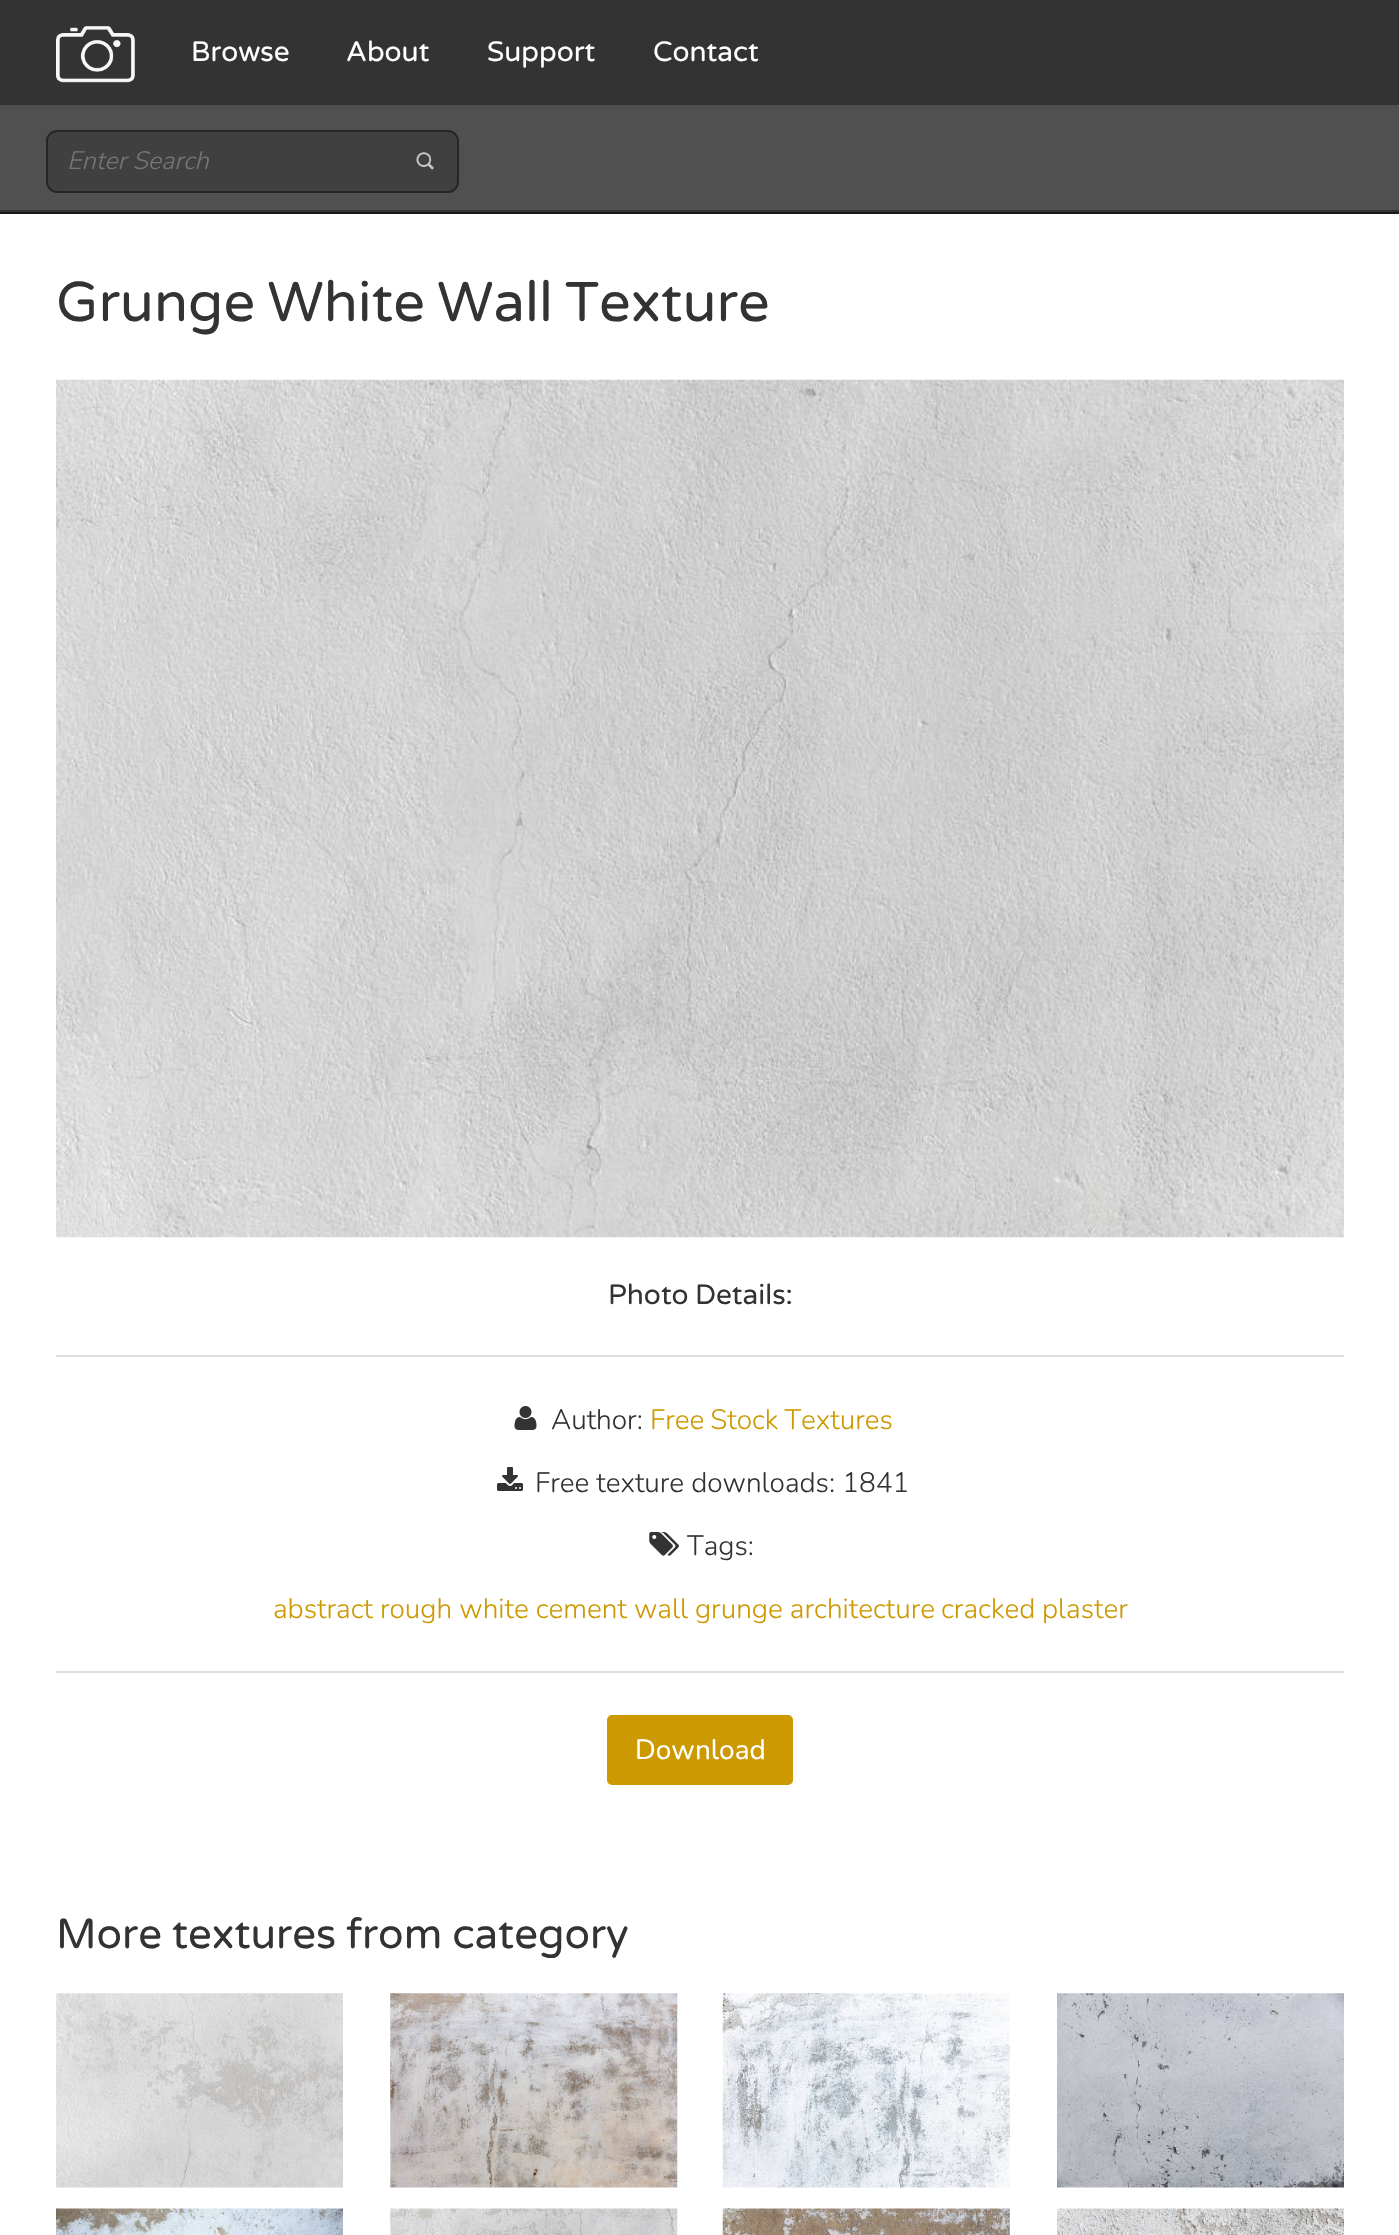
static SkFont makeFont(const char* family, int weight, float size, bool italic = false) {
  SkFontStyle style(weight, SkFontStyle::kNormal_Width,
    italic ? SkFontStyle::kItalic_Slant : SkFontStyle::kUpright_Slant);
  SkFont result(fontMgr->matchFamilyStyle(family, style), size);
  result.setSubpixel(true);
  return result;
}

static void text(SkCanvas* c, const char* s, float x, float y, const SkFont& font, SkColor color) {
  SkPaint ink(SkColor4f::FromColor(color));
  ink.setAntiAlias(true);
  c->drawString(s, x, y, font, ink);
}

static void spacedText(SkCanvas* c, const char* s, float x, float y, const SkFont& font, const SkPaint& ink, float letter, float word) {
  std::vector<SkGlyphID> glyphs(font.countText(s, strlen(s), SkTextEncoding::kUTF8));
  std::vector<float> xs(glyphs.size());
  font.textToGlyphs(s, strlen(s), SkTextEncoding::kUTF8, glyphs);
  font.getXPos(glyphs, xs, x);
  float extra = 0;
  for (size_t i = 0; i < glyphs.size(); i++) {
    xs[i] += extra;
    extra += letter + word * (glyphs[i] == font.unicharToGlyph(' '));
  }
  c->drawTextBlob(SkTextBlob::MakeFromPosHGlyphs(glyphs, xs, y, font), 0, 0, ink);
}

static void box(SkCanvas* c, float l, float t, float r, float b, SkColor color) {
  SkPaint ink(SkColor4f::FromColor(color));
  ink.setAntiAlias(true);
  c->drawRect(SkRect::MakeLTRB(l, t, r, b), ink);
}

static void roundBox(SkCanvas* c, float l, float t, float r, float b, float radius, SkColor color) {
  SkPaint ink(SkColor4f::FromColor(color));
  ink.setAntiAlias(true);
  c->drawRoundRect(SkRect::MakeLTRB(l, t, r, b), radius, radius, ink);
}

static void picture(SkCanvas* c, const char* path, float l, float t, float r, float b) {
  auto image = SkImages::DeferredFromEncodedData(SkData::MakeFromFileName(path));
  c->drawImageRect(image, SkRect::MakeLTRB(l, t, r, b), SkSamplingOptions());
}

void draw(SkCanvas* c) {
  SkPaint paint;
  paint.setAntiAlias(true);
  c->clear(0xffffffff);
  box(c, 0, 0, 1399, 212, 0xff333333);
  box(c, 0, 212, 1399, 214, 0xff1a1a1a);
  picture(c, "img_01.png", 56, 26, 135, 83);
  SkFont face1 = makeFont("Varela Round", 400, 28);
  text(c, "Browse", 191, 61, face1, 0xffffffff);
  text(c, "About", 346, 61, face1, 0xffffffff);
  text(c, "Support", 487, 61, face1, 0xffffffff);
  text(c, "Contact", 653, 61, face1, 0xffffffff);
  box(c, 0, 105, 1399, 210, 0xff505050);
  paint.setColor(0xff404040);
  c->drawRoundRect(SkRect::MakeLTRB(47, 131, 458, 192), 10, 10, paint);
  paint.setStyle(SkPaint::kStroke_Style);
  paint.setStrokeWidth(2);
  paint.setColor(0xff262626);
  c->drawRoundRect(SkRect::MakeLTRB(47, 131, 458, 192), 10, 10, paint);
  SkFont face2 = makeFont("Nunito", 300, 25.25f, true);
  text(c, "Enter Search", 67, 169, face2, 0xff757575);
  picture(c, "img_02.png", 416, 152, 434, 170);
  SkFont face3 = makeFont("Varela Round", 400, 56);
  paint.setStyle(SkPaint::kFill_Style);
  paint.setColor(0xff333333);
  spacedText(c, "Grunge White Wall Texture", 56, 321, face3, paint, 0, -2.5f);
  picture(c, "img_03.png", 56, 379, 1344, 1238);
  spacedText(c, "Photo Details:", 608, 1304, face1, paint, 0, -1);
  box(c, 56, 1355, 1344, 1357, 0xffdddddd);
  picture(c, "img_04.png", 514, 1406, 537, 1430);
  SkFont face4 = makeFont("Nunito", 300, 28);
  text(c, "Author:", 551, 1429, face4, 0xff333333);
  paint.setColor(0xffcc9900);
  spacedText(c, "Free Stock Textures", 650, 1429, face4, paint, 0, -1);
  picture(c, "img_05.png", 497, 1467, 523, 1491);
  text(c, "Free texture downloads: 1841", 535, 1492, face4, 0xff333333);
  picture(c, "img_06.png", 649, 1532, 679, 1556);
  text(c, "Tags:", 687, 1555, face4, 0xff333333);
  text(c, "abstract rough white cement wall grunge architecture", 273, 1618, face4, 0xffcc9900);
  text(c, "cracked", 941, 1618, face4, 0xffcc9900);
  text(c, "plaster", 1042, 1618, face4, 0xffcc9900);
  box(c, 56, 1671, 1344, 1673, 0xffdddddd);
  roundBox(c, 607, 1715, 793, 1785, 5, 0xffcc9900);
  SkFont face5 = makeFont("Nunito", 400, 28);
  text(c, "Download", 635, 1759, face5, 0xffffffff);
  SkFont face6 = makeFont("Varela Round", 400, 42);
  paint.setColor(0xff333333);
  spacedText(c, "More textures from category", 56, 1948, face6, paint, 0, -1);
  picture(c, "img_07.png", 56, 1993, 343, 2188);
  picture(c, "img_08.png", 390, 1993, 678, 2188);
  picture(c, "img_09.png", 722, 1993, 1010, 2188);
  picture(c, "img_10.png", 1057, 1993, 1344, 2188);
  picture(c, "img_11.png", 56, 2208, 343, 2235);
  picture(c, "img_12.png", 390, 2208, 678, 2235);
  picture(c, "img_13.png", 722, 2208, 1010, 2235);
  picture(c, "img_14.png", 1057, 2208, 1344, 2235);
}
